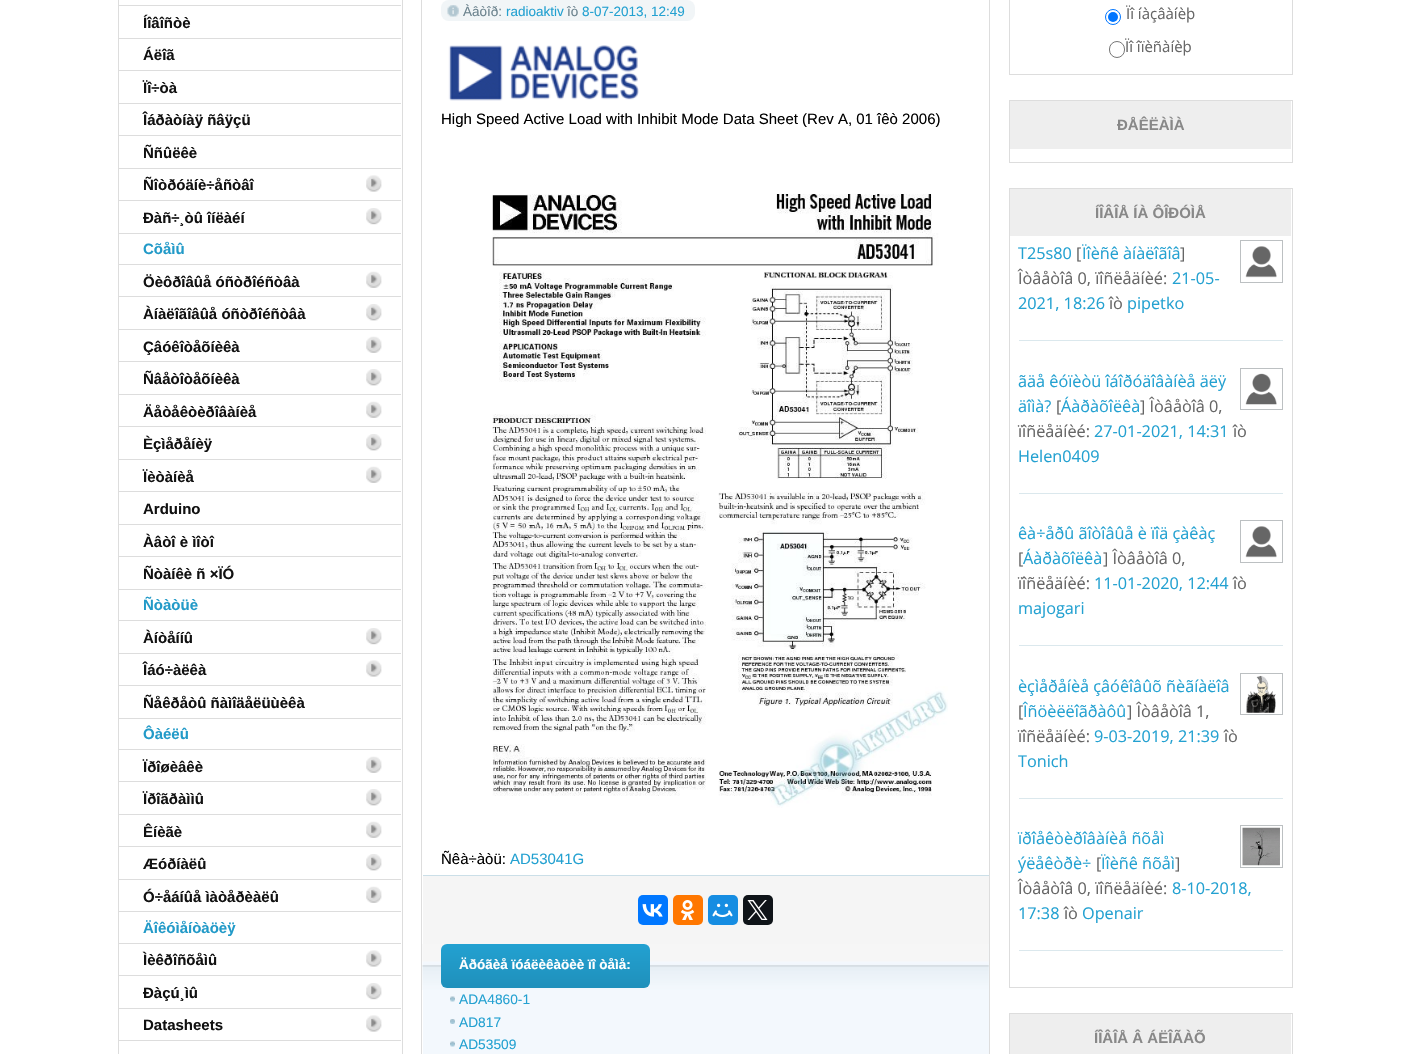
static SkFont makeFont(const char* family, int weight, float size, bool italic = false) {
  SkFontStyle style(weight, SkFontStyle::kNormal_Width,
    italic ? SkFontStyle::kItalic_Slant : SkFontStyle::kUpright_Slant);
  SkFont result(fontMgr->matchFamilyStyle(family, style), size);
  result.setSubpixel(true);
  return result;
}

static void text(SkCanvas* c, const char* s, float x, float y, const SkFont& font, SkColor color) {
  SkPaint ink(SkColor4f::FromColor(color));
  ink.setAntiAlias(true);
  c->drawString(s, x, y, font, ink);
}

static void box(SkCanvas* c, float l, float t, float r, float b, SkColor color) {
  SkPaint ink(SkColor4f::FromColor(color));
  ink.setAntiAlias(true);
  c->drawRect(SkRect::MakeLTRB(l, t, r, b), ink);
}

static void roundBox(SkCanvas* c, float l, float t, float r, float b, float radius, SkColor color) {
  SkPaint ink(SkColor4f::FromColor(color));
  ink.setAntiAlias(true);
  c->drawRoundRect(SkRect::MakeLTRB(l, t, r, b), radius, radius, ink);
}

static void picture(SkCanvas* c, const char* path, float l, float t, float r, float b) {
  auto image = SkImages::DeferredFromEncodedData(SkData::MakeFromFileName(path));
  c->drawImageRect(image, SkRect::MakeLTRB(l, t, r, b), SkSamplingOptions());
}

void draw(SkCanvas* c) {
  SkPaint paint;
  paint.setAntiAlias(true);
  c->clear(0xffffffff);
  paint.setStyle(SkPaint::kStroke_Style);
  paint.setStrokeWidth(1);
  paint.setColor(0xffdddddd);
  c->drawRect(SkRect::MakeLTRB(118.5f, -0.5f, 402.5f, 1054.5f), paint);
  box(c, 119, 5, 401, 6, 0xffdddddd);
  SkFont face1 = makeFont("Liberation Sans", 700, 15);
  text(c, "Íîâîñòè", 143, 28, face1, 0xff111111);
  box(c, 119, 38, 401, 39, 0xffdddddd);
  text(c, "Áëîã", 143, 60, face1, 0xff111111);
  box(c, 119, 70, 401, 71, 0xffdddddd);
  text(c, "Ïî÷òà", 143, 93, face1, 0xff111111);
  box(c, 119, 103, 401, 104, 0xffdddddd);
  text(c, "Îáðàòíàÿ ñâÿçü", 143, 125, face1, 0xff111111);
  box(c, 119, 135, 401, 136, 0xffdddddd);
  text(c, "Ññûëêè", 143, 158, face1, 0xff111111);
  box(c, 119, 168, 401, 169, 0xffdddddd);
  text(c, "Ñîòðóäíè÷åñòâî", 143, 190, face1, 0xff111111);
  picture(c, "img_01.png", 366, 175, 382, 192);
  box(c, 119, 200, 401, 201, 0xffdddddd);
  text(c, "Ðàñ÷¸òû îíëàéí", 143, 223, face1, 0xff111111);
  picture(c, "img_02.png", 366, 208, 382, 225);
  box(c, 119, 233, 401, 234, 0xffdddddd);
  text(c, "Cõåìû", 143, 254, face1, 0xff229ac8);
  box(c, 119, 264, 401, 265, 0xffdddddd);
  text(c, "Öèôðîâûå óñòðîéñòâà", 143, 287, face1, 0xff111111);
  picture(c, "img_03.png", 366, 271, 382, 288);
  box(c, 119, 296, 401, 297, 0xffdddddd);
  text(c, "Àíàëîãîâûå óñòðîéñòâà", 143, 319, face1, 0xff111111);
  picture(c, "img_04.png", 366, 304, 382, 321);
  box(c, 119, 329, 401, 330, 0xffdddddd);
  text(c, "Çâóêîòåõíèêà", 143, 352, face1, 0xff111111);
  picture(c, "img_03.png", 366, 336, 382, 353);
  box(c, 119, 361, 401, 362, 0xffdddddd);
  text(c, "Ñâåòîòåõíèêà", 143, 384, face1, 0xff111111);
  picture(c, "img_04.png", 366, 369, 382, 386);
  box(c, 119, 394, 401, 395, 0xffdddddd);
  text(c, "Äåòåêòèðîâàíèå", 143, 417, face1, 0xff111111);
  picture(c, "img_03.png", 366, 401, 382, 418);
  box(c, 119, 426, 401, 427, 0xffdddddd);
  text(c, "Èçìåðåíèÿ", 143, 449, face1, 0xff111111);
  picture(c, "img_05.png", 366, 434, 382, 451);
  box(c, 119, 459, 401, 460, 0xffdddddd);
  text(c, "Ïèòàíèå", 143, 482, face1, 0xff111111);
  picture(c, "img_03.png", 366, 466, 382, 483);
  box(c, 119, 491, 401, 492, 0xffdddddd);
  text(c, "Arduino", 143, 514, face1, 0xff111111);
  box(c, 119, 524, 401, 525, 0xffdddddd);
  text(c, "Àâòî è ìîòî", 143, 547, face1, 0xff111111);
  box(c, 119, 556, 401, 557, 0xffdddddd);
  text(c, "Ñòàíêè ñ ×ÏÓ", 143, 579, face1, 0xff111111);
  box(c, 119, 589, 401, 590, 0xffdddddd);
  text(c, "Ñòàòüè", 143, 610, face1, 0xff229ac8);
  box(c, 119, 620, 401, 621, 0xffdddddd);
  text(c, "Àíòåííû", 143, 643, face1, 0xff111111);
  picture(c, "img_02.png", 366, 628, 382, 645);
  box(c, 119, 653, 401, 654, 0xffdddddd);
  text(c, "Îáó÷àëêà", 143, 675, face1, 0xff111111);
  picture(c, "img_01.png", 366, 660, 382, 677);
  box(c, 119, 685, 401, 686, 0xffdddddd);
  text(c, "Ñåêðåòû ñàìîäåëüùèêà", 143, 708, face1, 0xff111111);
  box(c, 119, 718, 401, 719, 0xffdddddd);
  text(c, "Ôàéëû", 143, 739, face1, 0xff229ac8);
  box(c, 119, 749, 401, 750, 0xffdddddd);
  text(c, "Ïðîøèâêè", 143, 772, face1, 0xff111111);
  picture(c, "img_03.png", 366, 756, 382, 773);
  box(c, 119, 781, 401, 782, 0xffdddddd);
  text(c, "Ïðîãðàììû", 143, 804, face1, 0xff111111);
  picture(c, "img_04.png", 366, 789, 382, 806);
  box(c, 119, 814, 401, 815, 0xffdddddd);
  text(c, "Êíèãè", 143, 837, face1, 0xff111111);
  picture(c, "img_06.png", 366, 821, 382, 838);
  box(c, 119, 846, 401, 847, 0xffdddddd);
  text(c, "Æóðíàëû", 143, 869, face1, 0xff111111);
  picture(c, "img_04.png", 366, 854, 382, 871);
  box(c, 119, 879, 401, 880, 0xffdddddd);
  text(c, "Ó÷åáíûå ìàòåðèàëû", 143, 902, face1, 0xff111111);
  picture(c, "img_03.png", 366, 886, 382, 903);
  box(c, 119, 911, 401, 912, 0xffdddddd);
  text(c, "Äîêóìåíòàöèÿ", 143, 933, face1, 0xff229ac8);
  box(c, 119, 943, 401, 944, 0xffdddddd);
  text(c, "Ìèêðîñõåìû", 143, 965, face1, 0xff111111);
  picture(c, "img_01.png", 366, 950, 382, 967);
  box(c, 119, 975, 401, 976, 0xffdddddd);
  text(c, "Ðàçú¸ìû", 143, 998, face1, 0xff111111);
  picture(c, "img_02.png", 366, 983, 382, 1000);
  box(c, 119, 1008, 401, 1009, 0xffdddddd);
  text(c, "Datasheets", 143, 1030, face1, 0xff111111);
  picture(c, "img_01.png", 366, 1015, 382, 1032);
  box(c, 119, 1040, 401, 1041, 0xffdddddd);
  c->drawRect(SkRect::MakeLTRB(421.5f, -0.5f, 989.5f, 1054.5f), paint);
  roundBox(c, 441, 0, 695, 21, 8, 0xfff1f5f7);
  picture(c, "img_07.png", 447, 5, 459, 17);
  SkFont face2 = makeFont("Liberation Sans", 400, 13.5f);
  text(c, "Àâòîð:", 463, 16, face2, 0xff6c838e);
  text(c, "radioaktiv", 506, 16, face2, 0xff23a1d1);
  text(c, "îò", 567, 16, face2, 0xff6c838e);
  text(c, "8-07-2013, 12:49", 582, 16, face2, 0xff23a1d1);
  picture(c, "img_08.png", 448, 45, 639, 101);
  SkFont face3 = makeFont("Liberation Sans", 400, 15);
  text(c, "High Speed Active Load with Inhibit Mode Data Sheet (Rev A, 01 îêò 2006)", 441, 124, face3, 0xff000000);
  picture(c, "img_09.png", 492, 194, 948, 808);
  text(c, "Ñêà÷àòü:", 441, 864, face3, 0xff000000);
  text(c, "AD53041G", 510, 864, face3, 0xff23a1d1);
  box(c, 423, 876, 989, 944, 0xfff5f5f5);
  box(c, 423, 875, 989, 876, 0xffcbdfe8);
  roundBox(c, 638, 895, 668, 925, 5, 0xff0077ff);
  picture(c, "img_10.png", 642, 904, 663, 917);
  roundBox(c, 673, 895, 703, 925, 5, 0xffff7700);
  picture(c, "img_11.png", 680, 900, 695, 920);
  roundBox(c, 708, 895, 738, 925, 5, 0xff168de2);
  picture(c, "img_12.png", 712, 903, 733, 918);
  roundBox(c, 743, 895, 773, 925, 5, 0xff0f1419);
  picture(c, "img_13.png", 747, 900, 768, 920);
  box(c, 423, 944, 989, 1054, 0xfff3f8fd);
  picture(c, "img_14.png", 422, 944, 989, 990);
  paint.setStyle(SkPaint::kFill_Style);
  {
    const SkColor colors[] = {0xff23a1d1, 0xff1f90bb};
    const float stops[] = {0, 1};
    const SkPoint ends[] = {{546, 944}, {546, 988}};
    paint.setShader(SkGradientShader::MakeLinear(ends, colors, stops, 2, SkTileMode::kClamp));
    paint.setAlpha(255);
  }
  c->drawRoundRect(SkRect::MakeLTRB(441, 944, 650, 988), 6, 6, paint);
  SkFont face4 = makeFont("Liberation Sans", 700, 13.5f);
  text(c, "Äðóãèå ïóáëèêàöèè ïî òåìå:", 459, 969, face4, 0xffffffff);
  picture(c, "img_15.png", 450, 996, 455, 1002);
  SkFont face5 = makeFont("Liberation Sans", 400, 13.75f);
  text(c, "ADA4860-1", 459, 1004, face5, 0xff23a1d1);
  picture(c, "img_16.png", 450, 1019, 455, 1024);
  text(c, "AD817", 459, 1027, face5, 0xff23a1d1);
  picture(c, "img_15.png", 450, 1041, 455, 1047);
  text(c, "AD53509", 459, 1049, face5, 0xff23a1d1);
  paint.setStyle(SkPaint::kStroke_Style);
  paint.setShader(nullptr);
  paint.setColor(0xffdddddd);
  c->drawRect(SkRect::MakeLTRB(1009.5f, -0.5f, 1292.5f, 74.5f), paint);
  paint.setStrokeWidth(1.2f);
  paint.setColor(0xff145e7a);
  c->drawPath(SkPathBuilder().moveTo(1179.5f, -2).cubicTo(1178.5f, -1, 1177.5f, -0.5f, 1176, -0.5f).lineTo(1125, -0.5f).cubicTo(1124, -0.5f, 1122.5f, -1, 1122, -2).detach(), paint);
  paint.setStrokeWidth(1);
  paint.setColor(0xff0075ff);
  c->drawCircle(1113, 17, 7.5f, paint);
  paint.setStyle(SkPaint::kFill_Style);
  c->drawCircle(1113, 17, 5, paint);
  SkFont face6 = makeFont("Open Sans", 400, 15);
  text(c, "Ïî íàçâàíèþ", 1126, 19, face6, 0xff666666);
  paint.setStyle(SkPaint::kStroke_Style);
  paint.setColor(0xff767676);
  c->drawRoundRect(SkRect::MakeLTRB(1109.5f, 41.5f, 1124.5f, 57.5f), 7.5f, 7.5f, paint);
  text(c, "Ïî îïèñàíèþ", 1125, 52, face6, 0xff666666);
  paint.setColor(0xffdddddd);
  c->drawRect(SkRect::MakeLTRB(1009.5f, 100.5f, 1292.5f, 162.5f), paint);
  box(c, 1010, 101, 1291, 149, 0xffeeeeee);
  text(c, "ÐÅÊËÀÌÀ", 1117, 130, face1, 0xff888888);
  c->drawRect(SkRect::MakeLTRB(1009.5f, 188.5f, 1292.5f, 987.5f), paint);
  box(c, 1010, 189, 1291, 236, 0xffeeeeee);
  text(c, "ÍÎÂÎÅ ÍÀ ÔÎÐÓÌÅ", 1095, 218, face1, 0xff888888);
  SkFont face7 = makeFont("Open Sans", 400, 16.25f);
  text(c, "T25s80", 1018, 259, face7, 0xff23a1d1);
  text(c, "[", 1076, 259, face7, 0xff666666);
  text(c, "Ïîèñê àíàëîãîâ", 1082, 259, face7, 0xff23a1d1);
  text(c, "]", 1180, 259, face7, 0xff666666);
  paint.setColor(0xffbcc0c2);
  c->drawRect(SkRect::MakeLTRB(1240.5f, 240.5f, 1282.5f, 282.5f), paint);
  picture(c, "img_17.png", 1245, 246, 1277, 278);
  text(c, "Îòâåòîâ 0, ïîñëåäíèé:", 1018, 284, face7, 0xff666666);
  text(c, "21-05-", 1172, 284, face7, 0xff23a1d1);
  text(c, "2021, 18:26", 1018, 309, face7, 0xff23a1d1);
  text(c, "îò", 1109, 309, face7, 0xff666666);
  text(c, "pipetko", 1127, 309, face7, 0xff23a1d1);
  box(c, 1019, 340, 1283, 341, 0xffdbe8ed);
  text(c, "ãäå êóïèòü îáîðóäîâàíèå äëÿ", 1018, 387, face7, 0xff23a1d1);
  c->drawRect(SkRect::MakeLTRB(1240.5f, 368.5f, 1282.5f, 409.5f), paint);
  picture(c, "img_18.png", 1245, 373, 1277, 405);
  text(c, "äîìà?", 1018, 412, face7, 0xff23a1d1);
  text(c, "[", 1056, 412, face7, 0xff666666);
  text(c, "Áàðàõîëêà", 1061, 412, face7, 0xff23a1d1);
  text(c, "] Îòâåòîâ 0,", 1140, 412, face7, 0xff666666);
  text(c, "ïîñëåäíèé:", 1018, 437, face7, 0xff666666);
  text(c, "27-01-2021, 14:31", 1094, 437, face7, 0xff23a1d1);
  text(c, "îò", 1233, 437, face7, 0xff666666);
  text(c, "Helen0409", 1018, 462, face7, 0xff23a1d1);
  box(c, 1019, 493, 1283, 494, 0xffdbe8ed);
  text(c, "êà÷åðû ãîòîâûå è ïîä çàêàç", 1018, 539, face7, 0xff23a1d1);
  c->drawRect(SkRect::MakeLTRB(1240.5f, 520.5f, 1282.5f, 562.5f), paint);
  picture(c, "img_17.png", 1245, 526, 1277, 558);
  text(c, "[", 1018, 564, face7, 0xff666666);
  text(c, "Áàðàõîëêà", 1023, 564, face7, 0xff23a1d1);
  text(c, "] Îòâåòîâ 0,", 1103, 564, face7, 0xff666666);
  text(c, "ïîñëåäíèé:", 1018, 589, face7, 0xff666666);
  text(c, "11-01-2020, 12:44", 1094, 589, face7, 0xff23a1d1);
  text(c, "îò", 1233, 589, face7, 0xff666666);
  text(c, "majogari", 1018, 614, face7, 0xff23a1d1);
  box(c, 1019, 645, 1283, 646, 0xffdbe8ed);
  text(c, "èçìåðåíèå çâóêîâûõ ñèãíàëîâ", 1018, 692, face7, 0xff23a1d1);
  c->drawRect(SkRect::MakeLTRB(1240.5f, 673.5f, 1282.5f, 714.5f), paint);
  picture(c, "img_19.png", 1246, 675, 1276, 713);
  text(c, "[", 1018, 717, face7, 0xff666666);
  text(c, "Îñöèëëîãðàôû", 1023, 717, face7, 0xff23a1d1);
  text(c, "] Îòâåòîâ 1,", 1127, 717, face7, 0xff666666);
  text(c, "ïîñëåäíèé:", 1018, 742, face7, 0xff666666);
  text(c, "9-03-2019, 21:39", 1094, 742, face7, 0xff23a1d1);
  text(c, "îò", 1224, 742, face7, 0xff666666);
  text(c, "Tonich", 1018, 767, face7, 0xff23a1d1);
  box(c, 1019, 798, 1283, 799, 0xffdbe8ed);
  text(c, "ïðîåêòèðîâàíèå ñõåì", 1018, 844, face7, 0xff23a1d1);
  c->drawRect(SkRect::MakeLTRB(1240.5f, 825.5f, 1282.5f, 867.5f), paint);
  picture(c, "img_20.png", 1242, 827, 1280, 866);
  text(c, "ýëåêòðè÷", 1018, 869, face7, 0xff23a1d1);
  text(c, "[", 1096, 869, face7, 0xff666666);
  text(c, "Ïîèñê ñõåì", 1101, 869, face7, 0xff23a1d1);
  text(c, "]", 1175, 869, face7, 0xff666666);
  text(c, "Îòâåòîâ 0, ïîñëåäíèé:", 1018, 894, face7, 0xff666666);
  text(c, "8-10-2018,", 1172, 894, face7, 0xff23a1d1);
  text(c, "17:38", 1018, 919, face7, 0xff23a1d1);
  text(c, "îò", 1064, 919, face7, 0xff666666);
  text(c, "Openair", 1082, 919, face7, 0xff23a1d1);
  box(c, 1019, 950, 1283, 951, 0xffdbe8ed);
  paint.setColor(0xffdddddd);
  c->drawRect(SkRect::MakeLTRB(1009.5f, 1013.5f, 1292.5f, 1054.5f), paint);
  box(c, 1010, 1014, 1291, 1054, 0xffeeeeee);
  text(c, "ÍÎÂÎÅ Â ÁËÎÃÀÕ", 1094, 1043, face1, 0xff888888);
}
